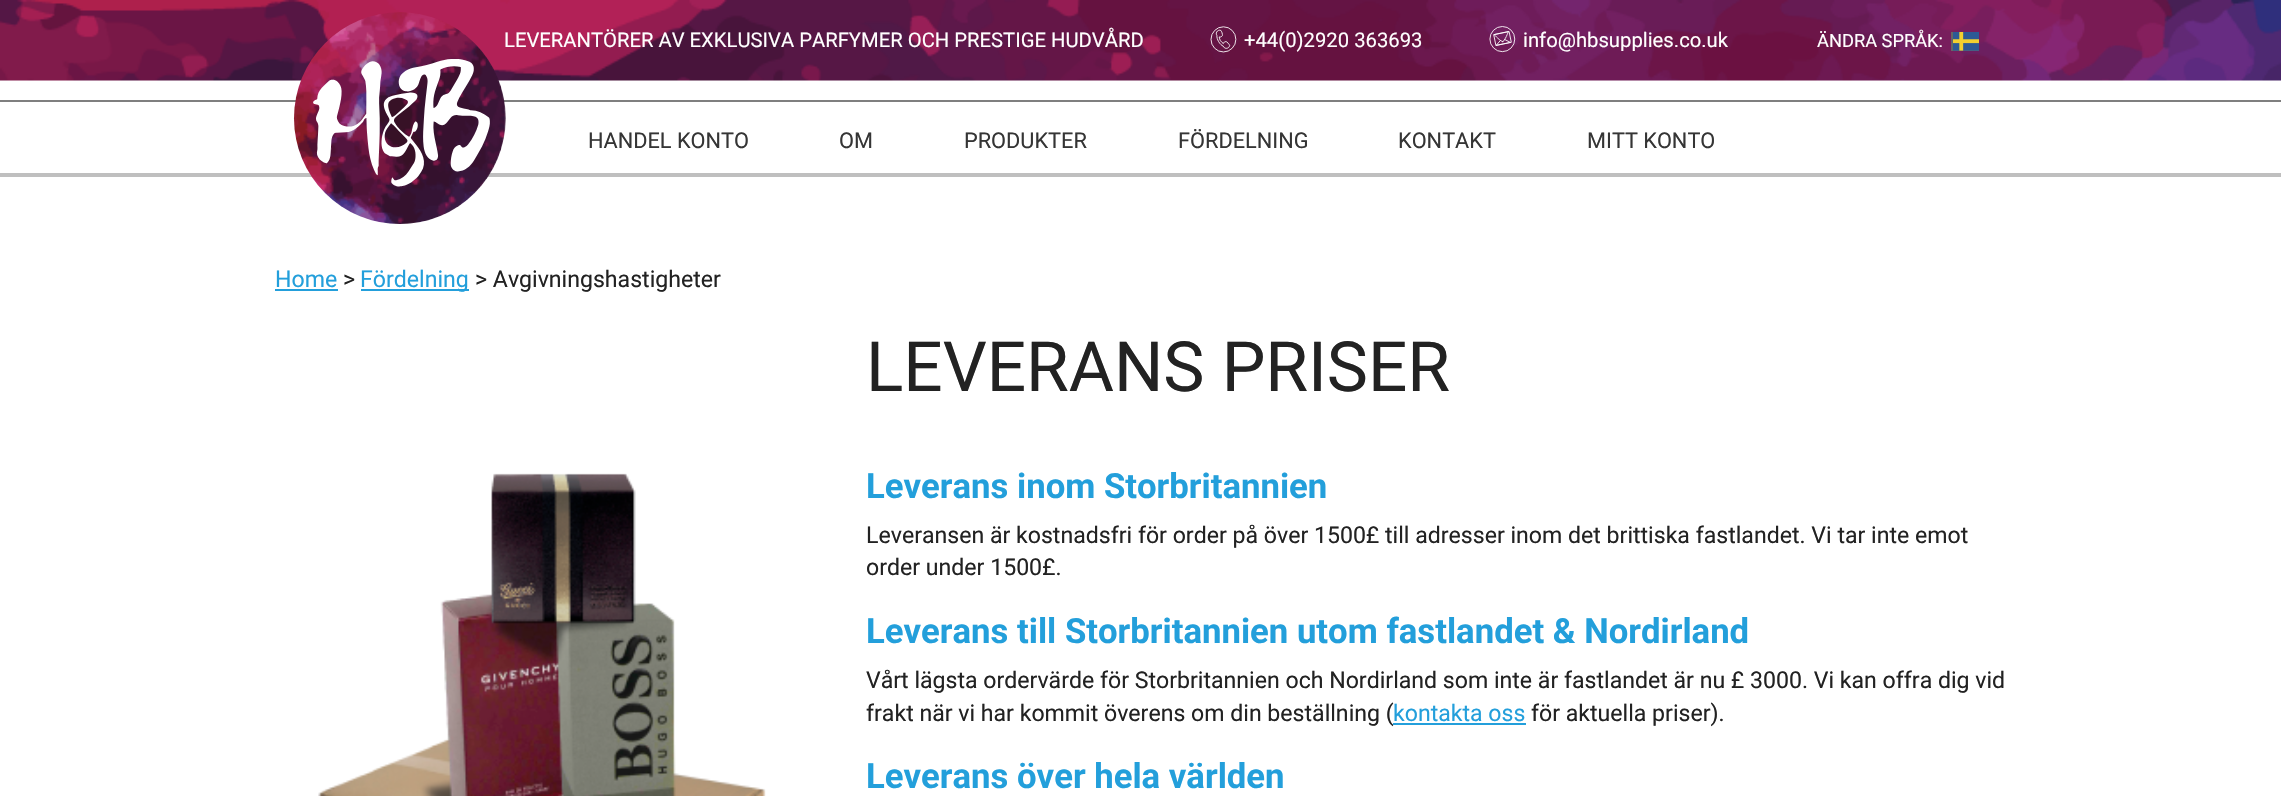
static SkFont makeFont(const char* family, int weight, float size, bool italic = false) {
  SkFontStyle style(weight, SkFontStyle::kNormal_Width,
    italic ? SkFontStyle::kItalic_Slant : SkFontStyle::kUpright_Slant);
  SkFont result(fontMgr->matchFamilyStyle(family, style), size);
  result.setSubpixel(true);
  return result;
}

static void text(SkCanvas* c, const char* s, float x, float y, const SkFont& font, SkColor color) {
  SkPaint ink(SkColor4f::FromColor(color));
  ink.setAntiAlias(true);
  c->drawString(s, x, y, font, ink);
}

static void box(SkCanvas* c, float l, float t, float r, float b, SkColor color) {
  SkPaint ink(SkColor4f::FromColor(color));
  ink.setAntiAlias(true);
  c->drawRect(SkRect::MakeLTRB(l, t, r, b), ink);
}

static void picture(SkCanvas* c, const char* path, float l, float t, float r, float b) {
  auto image = SkImages::DeferredFromEncodedData(SkData::MakeFromFileName(path));
  c->drawImageRect(image, SkRect::MakeLTRB(l, t, r, b), SkSamplingOptions());
}

void draw(SkCanvas* c) {
  SkPaint paint;
  paint.setAntiAlias(true);
  c->clear(0xffffffff);
  picture(c, "img_01.png", 0, 0, 2281, 81);
  SkFont face1 = makeFont("Roboto", 400, 20.25f);
  text(c, "LEVERANTÖRER AV EXKLUSIVA PARFYMER OCH PRESTIGE HUDVÅRD", 504, 47, face1, 0xffffffff);
  picture(c, "img_02.png", 1210, 26, 1237, 53);
  text(c, "+44(0)2920 363693", 1244, 47, face1, 0xffffffff);
  picture(c, "img_03.png", 1489, 26, 1516, 53);
  text(c, "info@hbsupplies.co.uk", 1523, 47, face1, 0xffffffff);
  SkFont face2 = makeFont("Roboto", 400, 18.25f);
  text(c, "ÄNDRA SPRÅK:", 1817, 47, face2, 0xffffffff);
  box(c, 1951, 32, 1979, 51, 0xff666666);
  picture(c, "img_04.png", 1953, 32, 1979, 51);
  box(c, 0, 100, 2281, 102, 0xff7f7f7f);
  box(c, 0, 173, 2281, 177, 0xffbfbfbf);
  picture(c, "img_05.png", 293, 12, 506, 224);
  picture(c, "img_06.png", 313, 59, 490, 187);
  SkFont face3 = makeFont("Roboto", 400, 21.75f);
  text(c, "HANDEL KONTO", 588, 148, face3, 0xff353535);
  text(c, "OM", 839, 148, face3, 0xff353535);
  text(c, "PRODUKTER", 964, 148, face3, 0xff353535);
  text(c, "FÖRDELNING", 1178, 148, face3, 0xff353535);
  text(c, "KONTAKT", 1398, 148, face3, 0xff353535);
  text(c, "MITT KONTO", 1587, 148, face3, 0xff353535);
  SkFont face4 = makeFont("Roboto", 400, 23.1f);
  text(c, "Home", 275, 287, face4, 0xff239fdb);
  box(c, 275, 289, 338, 291, 0xff239fdb);
  text(c, ">", 343, 287, face4, 0xff222222);
  box(c, 361, 289, 469, 291, 0xff239fdb);
  text(c, "Fördelning", 360, 287, face4, 0xff239fdb);
  text(c, "> Avgivningshastigheter", 475, 287, face4, 0xff222222);
  picture(c, "img_07.png", 318, 473, 766, 796);
  SkFont face5 = makeFont("Roboto", 400, 69.25f);
  text(c, "LEVERANS PRISER", 866, 391, face5, 0xff222222);
  SkFont face6 = makeFont("Roboto", 700, 34.7f);
  text(c, "Leverans inom Storbritannien", 866, 498, face6, 0xff239fdb);
  text(c, "Leveransen är kostnadsfri för order på över 1500£ till adresser inom det brittiska fastlandet. Vi tar inte emot", 866, 543, face4, 0xff222222);
  text(c, "order under 1500£.", 866, 575, face4, 0xff222222);
  text(c, "Leverans till Storbritannien utom fastlandet & Nordirland", 866, 643, face6, 0xff239fdb);
  text(c, "Vårt lägsta ordervärde för Storbritannien och Nordirland som inte är fastlandet är nu £ 3000. Vi kan offra dig vid", 866, 688, face4, 0xff222222);
  text(c, "frakt när vi har kommit överens om din beställning (", 866, 721, face4, 0xff222222);
  text(c, "kontakta oss", 1393, 721, face4, 0xff239fdb);
  box(c, 1393, 723, 1526, 725, 0xff239fdb);
  text(c, "för aktuella priser).", 1531, 721, face4, 0xff222222);
  text(c, "Leverans över hela världen", 866, 788, face6, 0xff239fdb);
}
